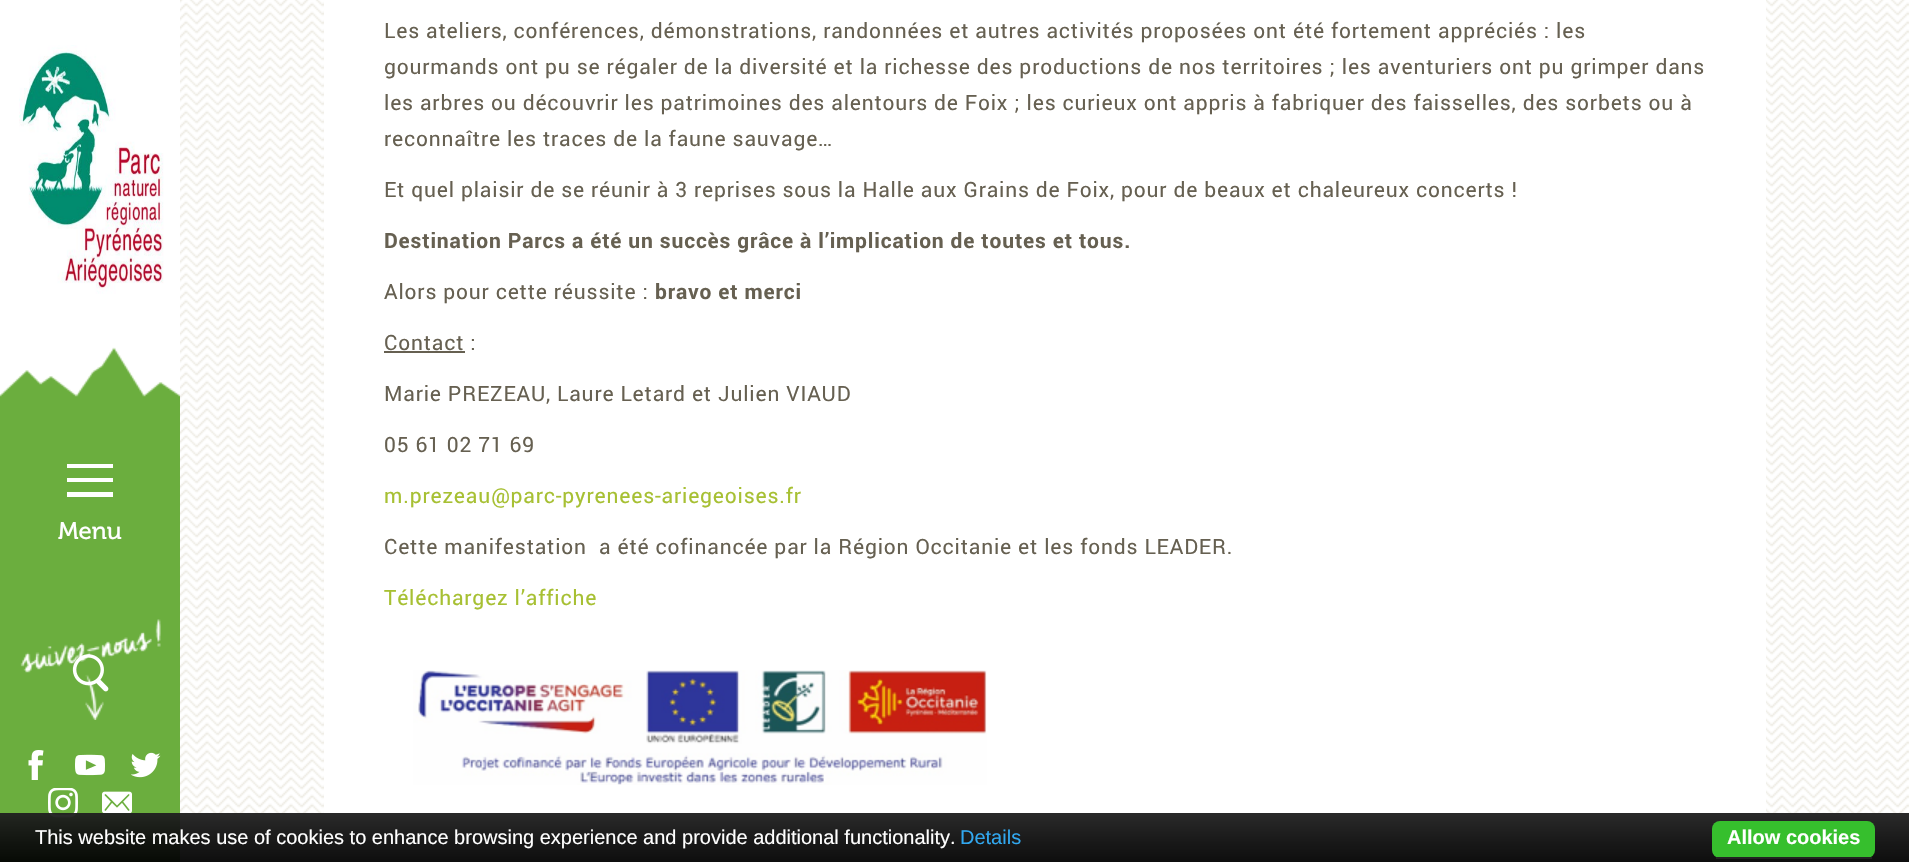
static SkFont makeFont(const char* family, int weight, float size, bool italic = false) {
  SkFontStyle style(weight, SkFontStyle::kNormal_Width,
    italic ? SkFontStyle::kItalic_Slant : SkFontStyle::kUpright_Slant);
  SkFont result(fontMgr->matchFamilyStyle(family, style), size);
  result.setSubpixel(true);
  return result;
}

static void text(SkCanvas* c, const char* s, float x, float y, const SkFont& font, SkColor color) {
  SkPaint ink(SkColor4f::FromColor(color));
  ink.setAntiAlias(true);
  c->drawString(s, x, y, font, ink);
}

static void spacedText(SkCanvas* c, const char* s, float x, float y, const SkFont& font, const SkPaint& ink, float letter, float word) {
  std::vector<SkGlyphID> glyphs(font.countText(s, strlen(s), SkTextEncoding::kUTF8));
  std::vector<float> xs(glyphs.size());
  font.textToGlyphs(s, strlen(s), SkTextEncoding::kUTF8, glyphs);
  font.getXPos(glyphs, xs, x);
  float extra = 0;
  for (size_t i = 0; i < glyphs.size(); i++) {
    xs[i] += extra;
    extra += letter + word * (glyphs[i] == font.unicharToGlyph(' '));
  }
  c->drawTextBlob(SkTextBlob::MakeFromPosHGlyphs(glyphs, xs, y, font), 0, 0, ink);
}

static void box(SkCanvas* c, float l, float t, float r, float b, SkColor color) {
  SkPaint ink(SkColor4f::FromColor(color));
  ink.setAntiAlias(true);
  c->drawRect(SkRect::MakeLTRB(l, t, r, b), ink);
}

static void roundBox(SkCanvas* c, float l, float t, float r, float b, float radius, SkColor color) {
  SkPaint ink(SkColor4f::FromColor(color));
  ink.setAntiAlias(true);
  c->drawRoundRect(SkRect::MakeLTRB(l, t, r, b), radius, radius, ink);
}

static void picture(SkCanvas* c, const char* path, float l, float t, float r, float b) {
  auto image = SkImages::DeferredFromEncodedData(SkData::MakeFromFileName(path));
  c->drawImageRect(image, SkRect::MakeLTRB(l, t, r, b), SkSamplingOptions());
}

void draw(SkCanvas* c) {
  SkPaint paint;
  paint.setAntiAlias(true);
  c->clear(0xffffffff);
  picture(c, "img_01.png", 180, 0, 1909, 862);
  box(c, 0, 404, 180, 862, 0xff6bae3e);
  picture(c, "img_02.png", 0, 347, 180, 404);
  picture(c, "img_03.png", 19, 45, 164, 294);
  paint.setColor(0xffffffff);
  c->drawPath(SkPathBuilder().moveTo(67, 478).lineTo(67, 482).lineTo(113, 482).lineTo(113, 478).close().moveTo(67, 464).lineTo(67, 468).lineTo(113, 468).lineTo(113, 464).close().moveTo(67, 492).lineTo(67, 497).lineTo(113, 497).lineTo(113, 492).close().detach(), paint);
  SkFont face1 = makeFont("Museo", 400, 24);
  text(c, "Menu", 58, 539, face1, 0xffffffff);
  picture(c, "img_04.png", 72, 654, 109, 692);
  picture(c, "img_05.png", 20, 619, 161, 720);
  picture(c, "img_06.png", 28, 750, 44, 780);
  picture(c, "img_07.png", 75, 754, 105, 776);
  picture(c, "img_08.png", 131, 752, 161, 778);
  picture(c, "img_09.png", 48, 788, 78, 818);
  picture(c, "img_10.png", 102, 791, 132, 814);
  box(c, 324, 0, 1766, 862, 0xffffffff);
  SkFont face2 = makeFont("roboto", 400, 21);
  paint.setColor(0xff666051);
  spacedText(c, "Les ateliers, conférences, démonstrations, randonnées et autres activités proposées ont été fortement appréciés : les", 384, 38, face2, paint, 0.84f, 0);
  spacedText(c, "gourmands ont pu se régaler de la diversité et la richesse des productions de nos territoires ; les aventuriers ont pu grimper dans", 384, 74, face2, paint, 0.84f, 0);
  spacedText(c, "les arbres ou découvrir les patrimoines des alentours de Foix ; les curieux ont appris à fabriquer des faisselles, des sorbets ou à", 384, 110, face2, paint, 0.84f, 0);
  spacedText(c, "reconnaître les traces de la faune sauvage…", 384, 146, face2, paint, 0.84f, 0);
  spacedText(c, "Et quel plaisir de se réunir à 3 reprises sous la Halle aux Grains de Foix, pour de beaux et chaleureux concerts !", 384, 197, face2, paint, 0.84f, 0);
  SkFont face3 = makeFont("roboto", 700, 21);
  spacedText(c, "Destination Parcs a été un succès grâce à l’implication de toutes et tous.", 384, 248, face3, paint, 0.84f, 0);
  spacedText(c, "Alors pour cette réussite :", 384, 299, face2, paint, 0.84f, 0);
  spacedText(c, "bravo et merci", 655, 299, face3, paint, 0.84f, 0);
  spacedText(c, "Contact :", 384, 350, face2, paint, 0.84f, 0);
  box(c, 384, 351, 465, 353, 0xff666051);
  spacedText(c, "Marie PREZEAU, Laure Letard et Julien VIAUD", 384, 401, face2, paint, 0.84f, 0);
  spacedText(c, "05 61 02 71 69", 384, 452, face2, paint, 0.84f, 0);
  paint.setColor(0xffa7c033);
  spacedText(c, "m.prezeau@parc-pyrenees-ariegeoises.fr", 384, 503, face2, paint, 0.84f, 0);
  paint.setColor(0xff666051);
  spacedText(c, "Cette manifestation  a été cofinancée par la Région Occitanie et les fonds LEADER.", 384, 554, face2, paint, 0.84f, 0);
  paint.setColor(0xffa7c033);
  spacedText(c, "Téléchargez l’affiche", 384, 605, face2, paint, 0.84f, 0);
  picture(c, "img_11.png", 413, 670, 987, 785);
  {
    const SkColor colors[] = {0xf21e1e1e, 0xf2000000};
    const float stops[] = {0, 1};
    const SkPoint ends[] = {{955, 813}, {955, 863}};
    paint.setShader(SkGradientShader::MakeLinear(ends, colors, stops, 2, SkTileMode::kClamp));
    paint.setAlpha(255);
  }
  c->drawRect(SkRect::MakeLTRB(0, 813, 1909, 862), paint);
  SkFont face4 = makeFont("Liberation Sans", 400, 20);
  text(c, "This website makes use of cookies to enhance browsing experience and provide additional functionality.", 35, 844, face4, 0xffffffff);
  text(c, "Details", 960, 844, face4, 0xff31a8f0);
  roundBox(c, 1712, 821, 1875, 858, 8, 0xff36bf2d);
  box(c, 1716, 857, 1872, 859, 0xff222222);
  SkFont face5 = makeFont("Liberation Sans", 700, 20);
  text(c, "Allow cookies", 1727, 844, face5, 0xffffffff);
}
